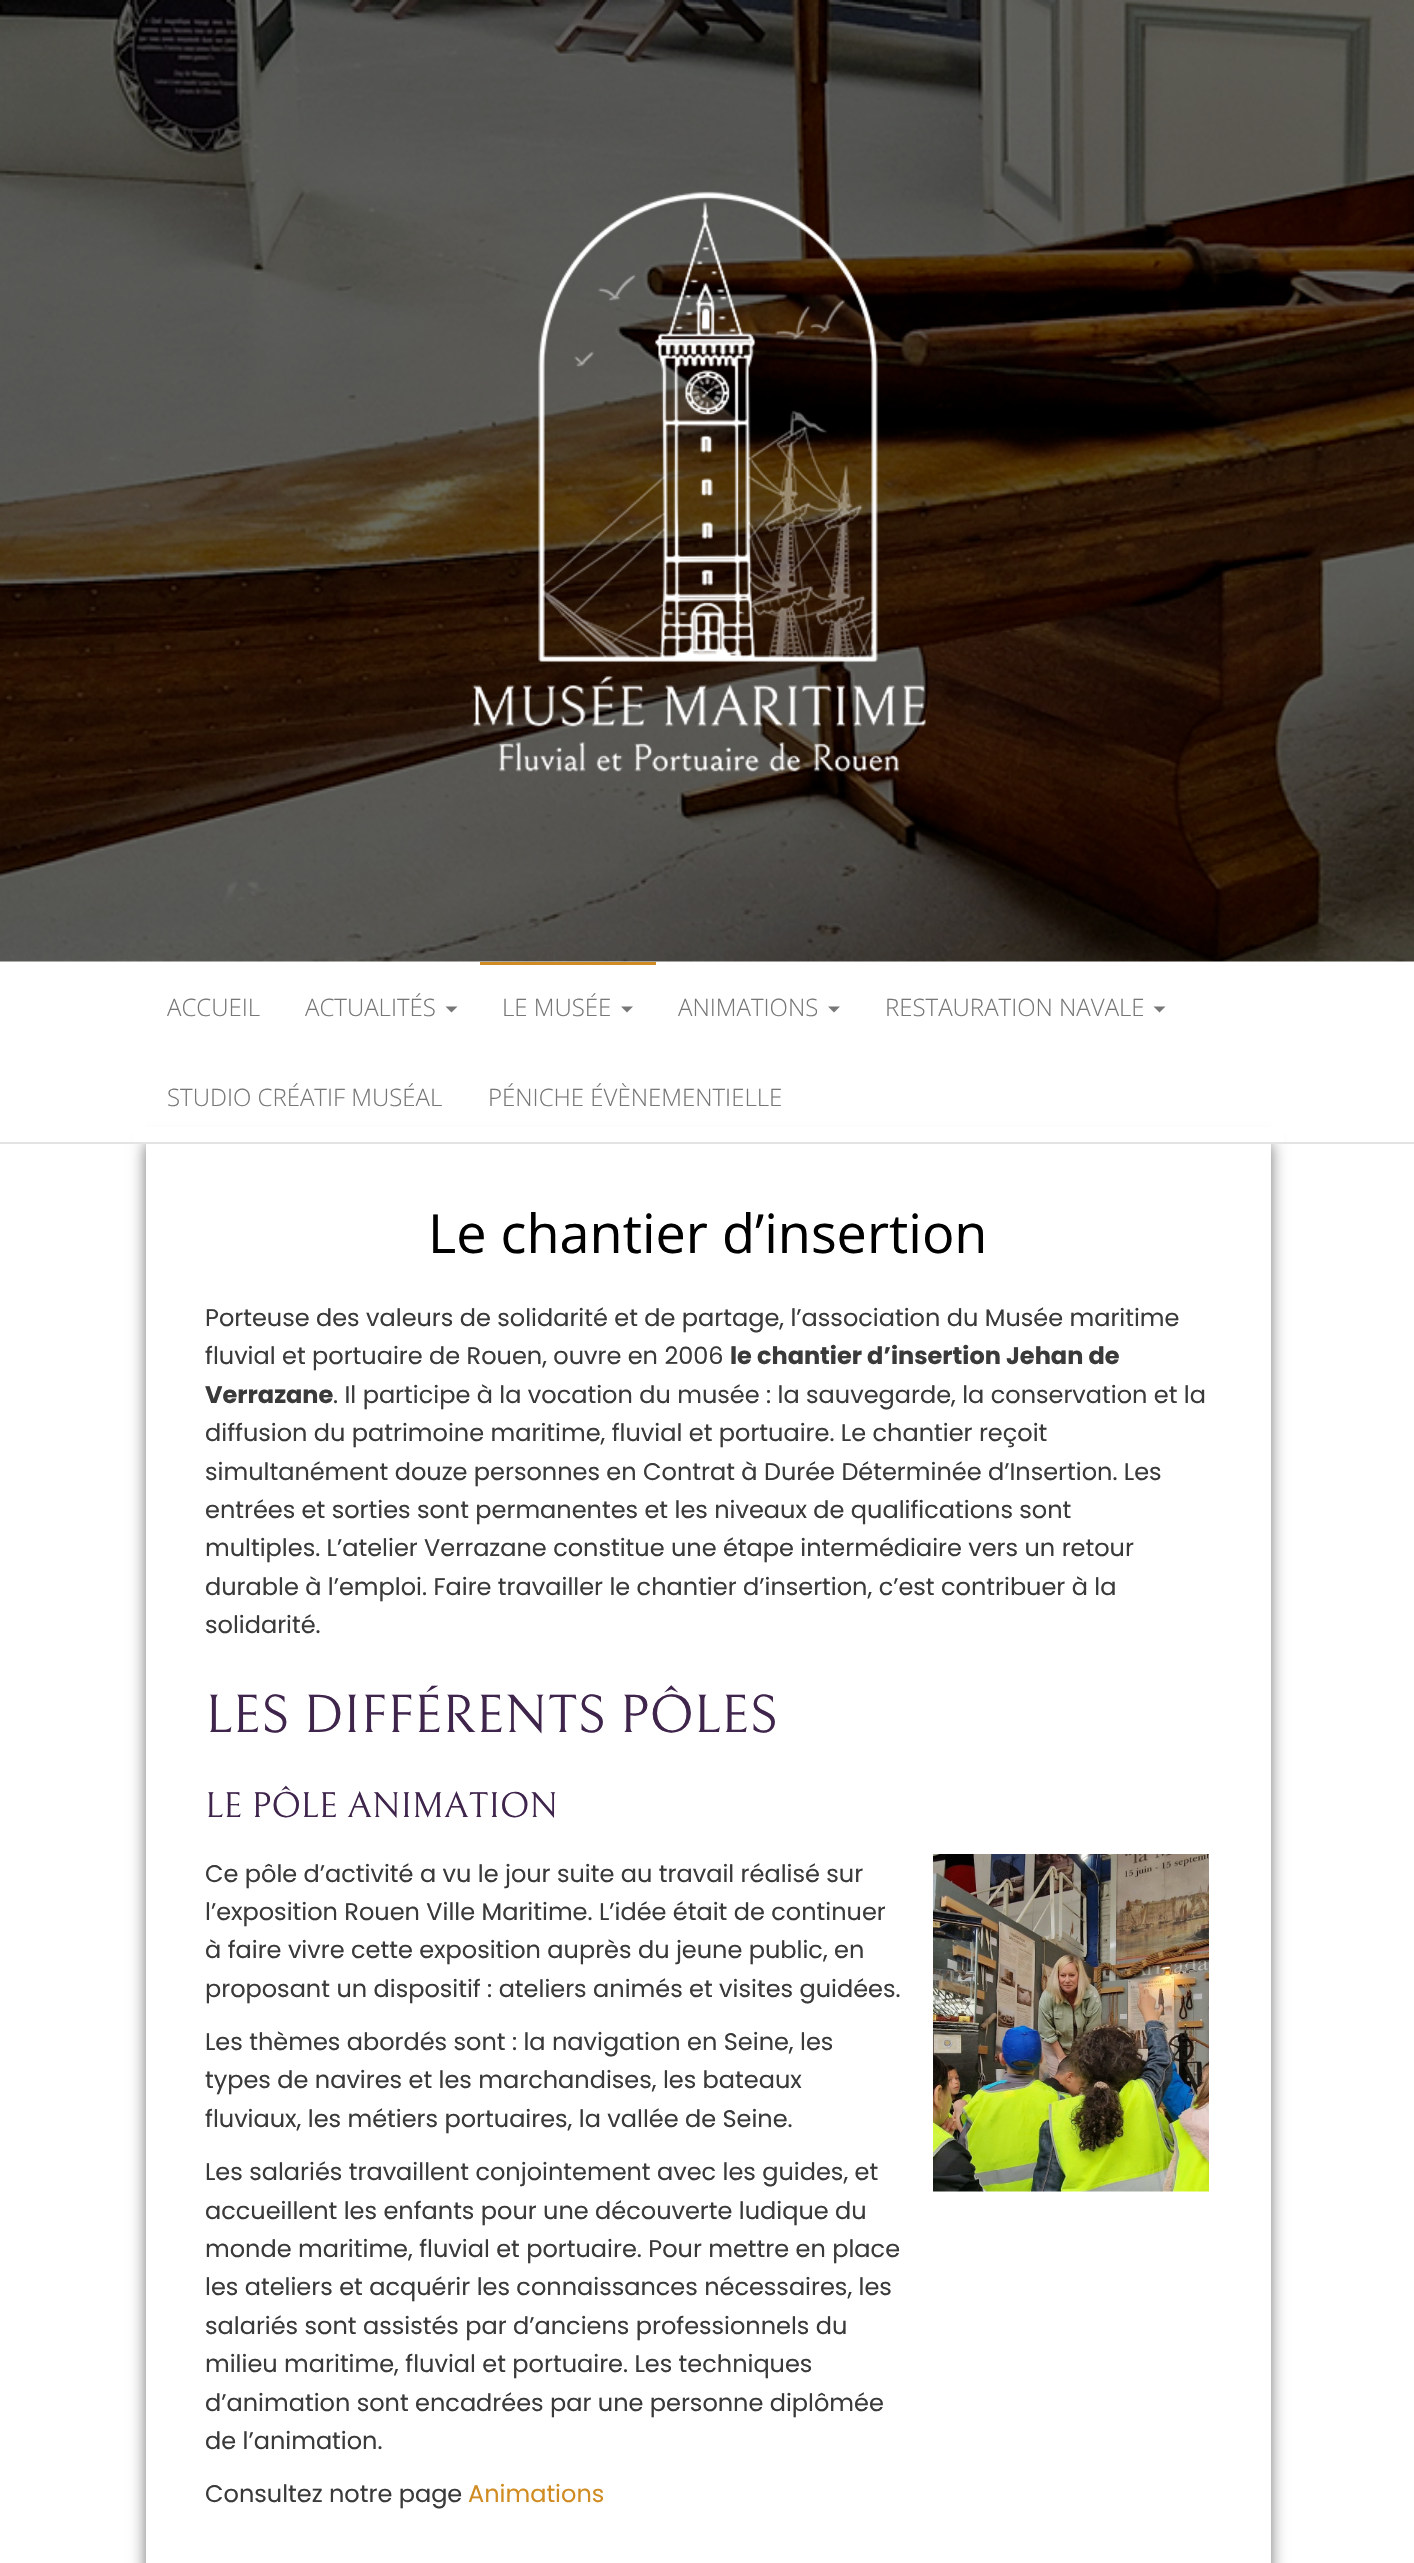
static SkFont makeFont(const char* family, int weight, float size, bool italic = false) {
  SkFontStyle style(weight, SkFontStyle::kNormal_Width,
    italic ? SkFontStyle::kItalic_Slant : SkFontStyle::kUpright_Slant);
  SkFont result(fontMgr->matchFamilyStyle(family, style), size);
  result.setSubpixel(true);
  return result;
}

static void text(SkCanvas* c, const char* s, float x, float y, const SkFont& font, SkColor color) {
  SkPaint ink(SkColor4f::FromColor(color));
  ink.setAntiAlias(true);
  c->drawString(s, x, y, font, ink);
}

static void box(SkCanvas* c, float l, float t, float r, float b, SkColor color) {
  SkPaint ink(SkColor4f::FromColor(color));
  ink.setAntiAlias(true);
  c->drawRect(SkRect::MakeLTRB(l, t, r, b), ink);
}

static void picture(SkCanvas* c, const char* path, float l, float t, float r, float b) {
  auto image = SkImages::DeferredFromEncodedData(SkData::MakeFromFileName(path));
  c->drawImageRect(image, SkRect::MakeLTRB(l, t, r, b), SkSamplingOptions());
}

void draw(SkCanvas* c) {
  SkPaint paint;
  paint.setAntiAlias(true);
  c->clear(0xffffffff);
  picture(c, "img_01.png", 0, 0, 1414, 962);
  picture(c, "img_02.png", 472, 191, 926, 772);
  paint.setColor(0x8c000000);
  paint.setMaskFilter(SkMaskFilter::MakeBlur(kNormal_SkBlurStyle, 7.5f));
  c->drawRect(SkRect::MakeLTRB(146, 1143, 1271, 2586), paint);
  paint.setMaskFilter(nullptr);
  box(c, 133, 1127, 1284, 1142, 0xffffffff);
  box(c, 0, 1142, 1414, 1144, 0xffe3e3e3);
  SkFont face1 = makeFont("Open Sans", 300, 24);
  text(c, "ACCUEIL", 167, 1016, face1, 0xff777777);
  text(c, "ACTUALITÉS", 305, 1016, face1, 0xff777777);
  paint.setColor(0xff777777);
  c->drawPath(SkPathBuilder().moveTo(445.5f, 1006.5f).lineTo(457.5f, 1006.5f).lineTo(451.5f, 1012.5f).close().detach(), paint);
  box(c, 480, 962, 656, 965, 0xffd08c22);
  text(c, "LE MUSÉE", 502, 1016, face1, 0xff777777);
  c->drawPath(SkPathBuilder().moveTo(621, 1006.5f).lineTo(633, 1006.5f).lineTo(627, 1012.5f).close().detach(), paint);
  text(c, "ANIMATIONS", 678, 1016, face1, 0xff777777);
  c->drawPath(SkPathBuilder().moveTo(828, 1006.5f).lineTo(840, 1006.5f).lineTo(834, 1012.5f).close().detach(), paint);
  text(c, "RESTAURATION NAVALE", 885, 1016, face1, 0xff777777);
  c->drawPath(SkPathBuilder().moveTo(1153.5f, 1006.5f).lineTo(1165.5f, 1006.5f).lineTo(1159.5f, 1012.5f).close().detach(), paint);
  text(c, "STUDIO CRÉATIF MUSÉAL", 167, 1106, face1, 0xff777777);
  text(c, "PÉNICHE ÉVÈNEMENTIELLE", 488, 1106, face1, 0xff777777);
  box(c, 146, 1144, 1271, 2563, 0xffffffff);
  SkFont face2 = makeFont("Open Sans", 400, 54);
  text(c, "Le chantier d’insertion", 428, 1253, face2, 0xff000000);
  SkFont face3 = makeFont("Poppins", 400, 24);
  text(c, "Porteuse des valeurs de solidarité et de partage, l’association du Musée maritime", 205, 1326, face3, 0xff3a3a3a);
  text(c, "fluvial et portuaire de Rouen, ouvre en 2006", 205, 1364, face3, 0xff3a3a3a);
  SkFont face4 = makeFont("Poppins", 700, 24);
  text(c, "le chantier d’insertion Jehan de", 730, 1364, face4, 0xff3a3a3a);
  text(c, "Verrazane", 205, 1403, face4, 0xff3a3a3a);
  text(c, ". Il participe à la vocation du musée : la sauvegarde, la conservation et la", 333, 1403, face3, 0xff3a3a3a);
  text(c, "diffusion du patrimoine maritime, fluvial et portuaire. Le chantier reçoit", 205, 1441, face3, 0xff3a3a3a);
  text(c, "simultanément douze personnes en Contrat à Durée Déterminée d’Insertion. Les", 205, 1480, face3, 0xff3a3a3a);
  text(c, "entrées et sorties sont permanentes et les niveaux de qualifications sont", 205, 1518, face3, 0xff3a3a3a);
  text(c, "multiples. L’atelier Verrazane constitue une étape intermédiaire vers un retour", 205, 1556, face3, 0xff3a3a3a);
  text(c, "durable à l’emploi. Faire travailler le chantier d’insertion, c’est contribuer à la", 205, 1595, face3, 0xff3a3a3a);
  text(c, "solidarité.", 205, 1633, face3, 0xff3a3a3a);
  SkFont face5 = makeFont("Bellefair", 400, 54);
  text(c, "LES DIFFÉRENTS PÔLES", 205, 1732, face5, 0xff3f244c);
  SkFont face6 = makeFont("Bellefair", 400, 36);
  text(c, "LE PÔLE ANIMATION", 205, 1817, face6, 0xff3f244c);
  text(c, "Ce pôle d’activité a vu le jour suite au travail réalisé sur", 205, 1882, face3, 0xff3a3a3a);
  text(c, "l’exposition Rouen Ville Maritime. L’idée était de continuer", 205, 1920, face3, 0xff3a3a3a);
  text(c, "à faire vivre cette exposition auprès du jeune public, en", 205, 1958, face3, 0xff3a3a3a);
  text(c, "proposant un dispositif : ateliers animés et visites guidées.", 205, 1997, face3, 0xff3a3a3a);
  text(c, "Les thèmes abordés sont : la navigation en Seine, les", 205, 2050, face3, 0xff3a3a3a);
  text(c, "types de navires et les marchandises, les bateaux", 205, 2088, face3, 0xff3a3a3a);
  text(c, "fluviaux, les métiers portuaires, la vallée de Seine.", 205, 2127, face3, 0xff3a3a3a);
  text(c, "Les salariés travaillent conjointement avec les guides, et", 205, 2180, face3, 0xff3a3a3a);
  text(c, "accueillent les enfants pour une découverte ludique du", 205, 2219, face3, 0xff3a3a3a);
  text(c, "monde maritime, fluvial et portuaire. Pour mettre en place", 205, 2257, face3, 0xff3a3a3a);
  text(c, "les ateliers et acquérir les connaissances nécessaires, les", 205, 2295, face3, 0xff3a3a3a);
  text(c, "salariés sont assistés par d’anciens professionnels du", 205, 2334, face3, 0xff3a3a3a);
  text(c, "milieu maritime, fluvial et portuaire. Les techniques", 205, 2372, face3, 0xff3a3a3a);
  text(c, "d’animation sont encadrées par une personne diplômée", 205, 2411, face3, 0xff3a3a3a);
  text(c, "de l’animation.", 205, 2449, face3, 0xff3a3a3a);
  text(c, "Consultez notre page", 205, 2502, face3, 0xff3a3a3a);
  text(c, "Animations", 468, 2502, face3, 0xffd08c22);
  picture(c, "img_03.png", 933, 1854, 1209, 2192);
}
